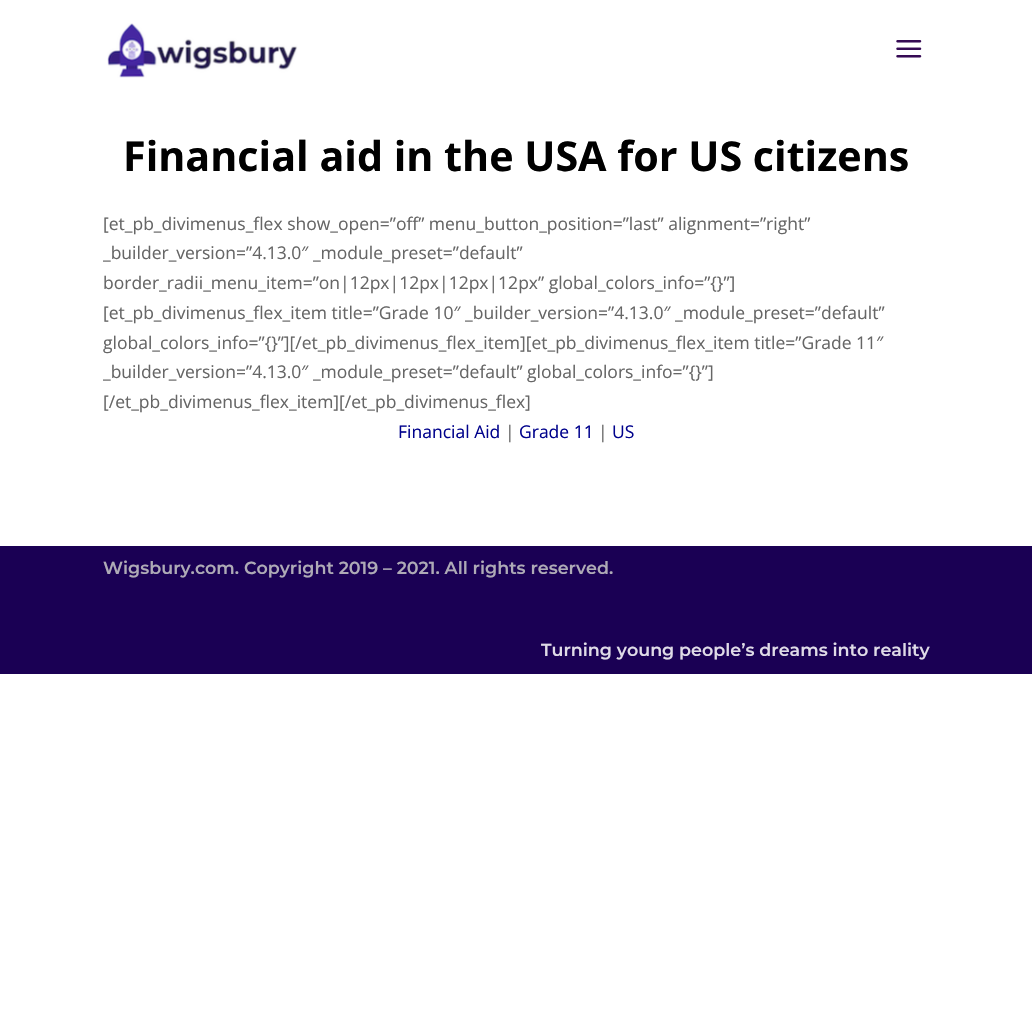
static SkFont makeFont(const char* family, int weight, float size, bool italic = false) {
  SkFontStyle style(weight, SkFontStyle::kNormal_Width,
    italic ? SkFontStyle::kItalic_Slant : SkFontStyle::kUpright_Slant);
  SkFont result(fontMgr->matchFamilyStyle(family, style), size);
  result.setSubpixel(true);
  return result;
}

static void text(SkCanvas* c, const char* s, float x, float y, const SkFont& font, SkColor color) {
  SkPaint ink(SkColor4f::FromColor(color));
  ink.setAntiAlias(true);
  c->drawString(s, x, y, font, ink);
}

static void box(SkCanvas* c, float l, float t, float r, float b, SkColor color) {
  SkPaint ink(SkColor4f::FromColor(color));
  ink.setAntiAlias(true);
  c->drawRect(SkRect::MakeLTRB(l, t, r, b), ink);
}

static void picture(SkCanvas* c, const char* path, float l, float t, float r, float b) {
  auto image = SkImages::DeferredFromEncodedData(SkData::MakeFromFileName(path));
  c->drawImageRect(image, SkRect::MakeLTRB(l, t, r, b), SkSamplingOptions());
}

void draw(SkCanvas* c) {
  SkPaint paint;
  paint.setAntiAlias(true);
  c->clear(0xffffffff);
  picture(c, "img_01.png", 107, 23, 298, 78);
  picture(c, "img_02.png", 896, 40, 922, 58);
  SkFont face1 = makeFont("Open Sans", 700, 41.25f);
  text(c, "Financial aid in the USA for US citizens", 123, 171, face1, 0xff000000);
  SkFont face2 = makeFont("Open Sans", 400, 17.5f);
  text(c, "[et_pb_divimenus_flex show_open=”off” menu_button_position=”last” alignment=”right”", 103, 230, face2, 0xff666666);
  text(c, "_builder_version=”4.13.0″ _module_preset=”default”", 103, 259, face2, 0xff666666);
  text(c, "border_radii_menu_item=”on|12px|12px|12px|12px” global_colors_info=”{}”]", 103, 289, face2, 0xff666666);
  text(c, "[et_pb_divimenus_flex_item title=”Grade 10″ _builder_version=”4.13.0″ _module_preset=”default”", 103, 319, face2, 0xff666666);
  text(c, "global_colors_info=”{}”][/et_pb_divimenus_flex_item][et_pb_divimenus_flex_item title=”Grade 11″", 103, 349, face2, 0xff666666);
  text(c, "_builder_version=”4.13.0″ _module_preset=”default” global_colors_info=”{}”]", 103, 378, face2, 0xff666666);
  text(c, "[/et_pb_divimenus_flex_item][/et_pb_divimenus_flex]", 103, 408, face2, 0xff666666);
  text(c, "Financial Aid", 398, 438, face2, 0xff00028c);
  text(c, "|", 505, 438, face2, 0xff666666);
  text(c, "Grade 11", 519, 438, face2, 0xff00028c);
  text(c, "|", 598, 438, face2, 0xff666666);
  text(c, "US", 612, 438, face2, 0xff00028c);
  box(c, 0, 546, 1032, 674, 0xff1a0054);
  SkFont face3 = makeFont("Montserrat", 100, 17.5f);
  text(c, "Wigsbury.com. Copyright 2019 – 2021. All rights reserved.", 103, 574, face3, 0xffaeaab6);
  text(c, "Turning young people’s dreams into reality", 541, 656, face3, 0xffdfdbe7);
}
